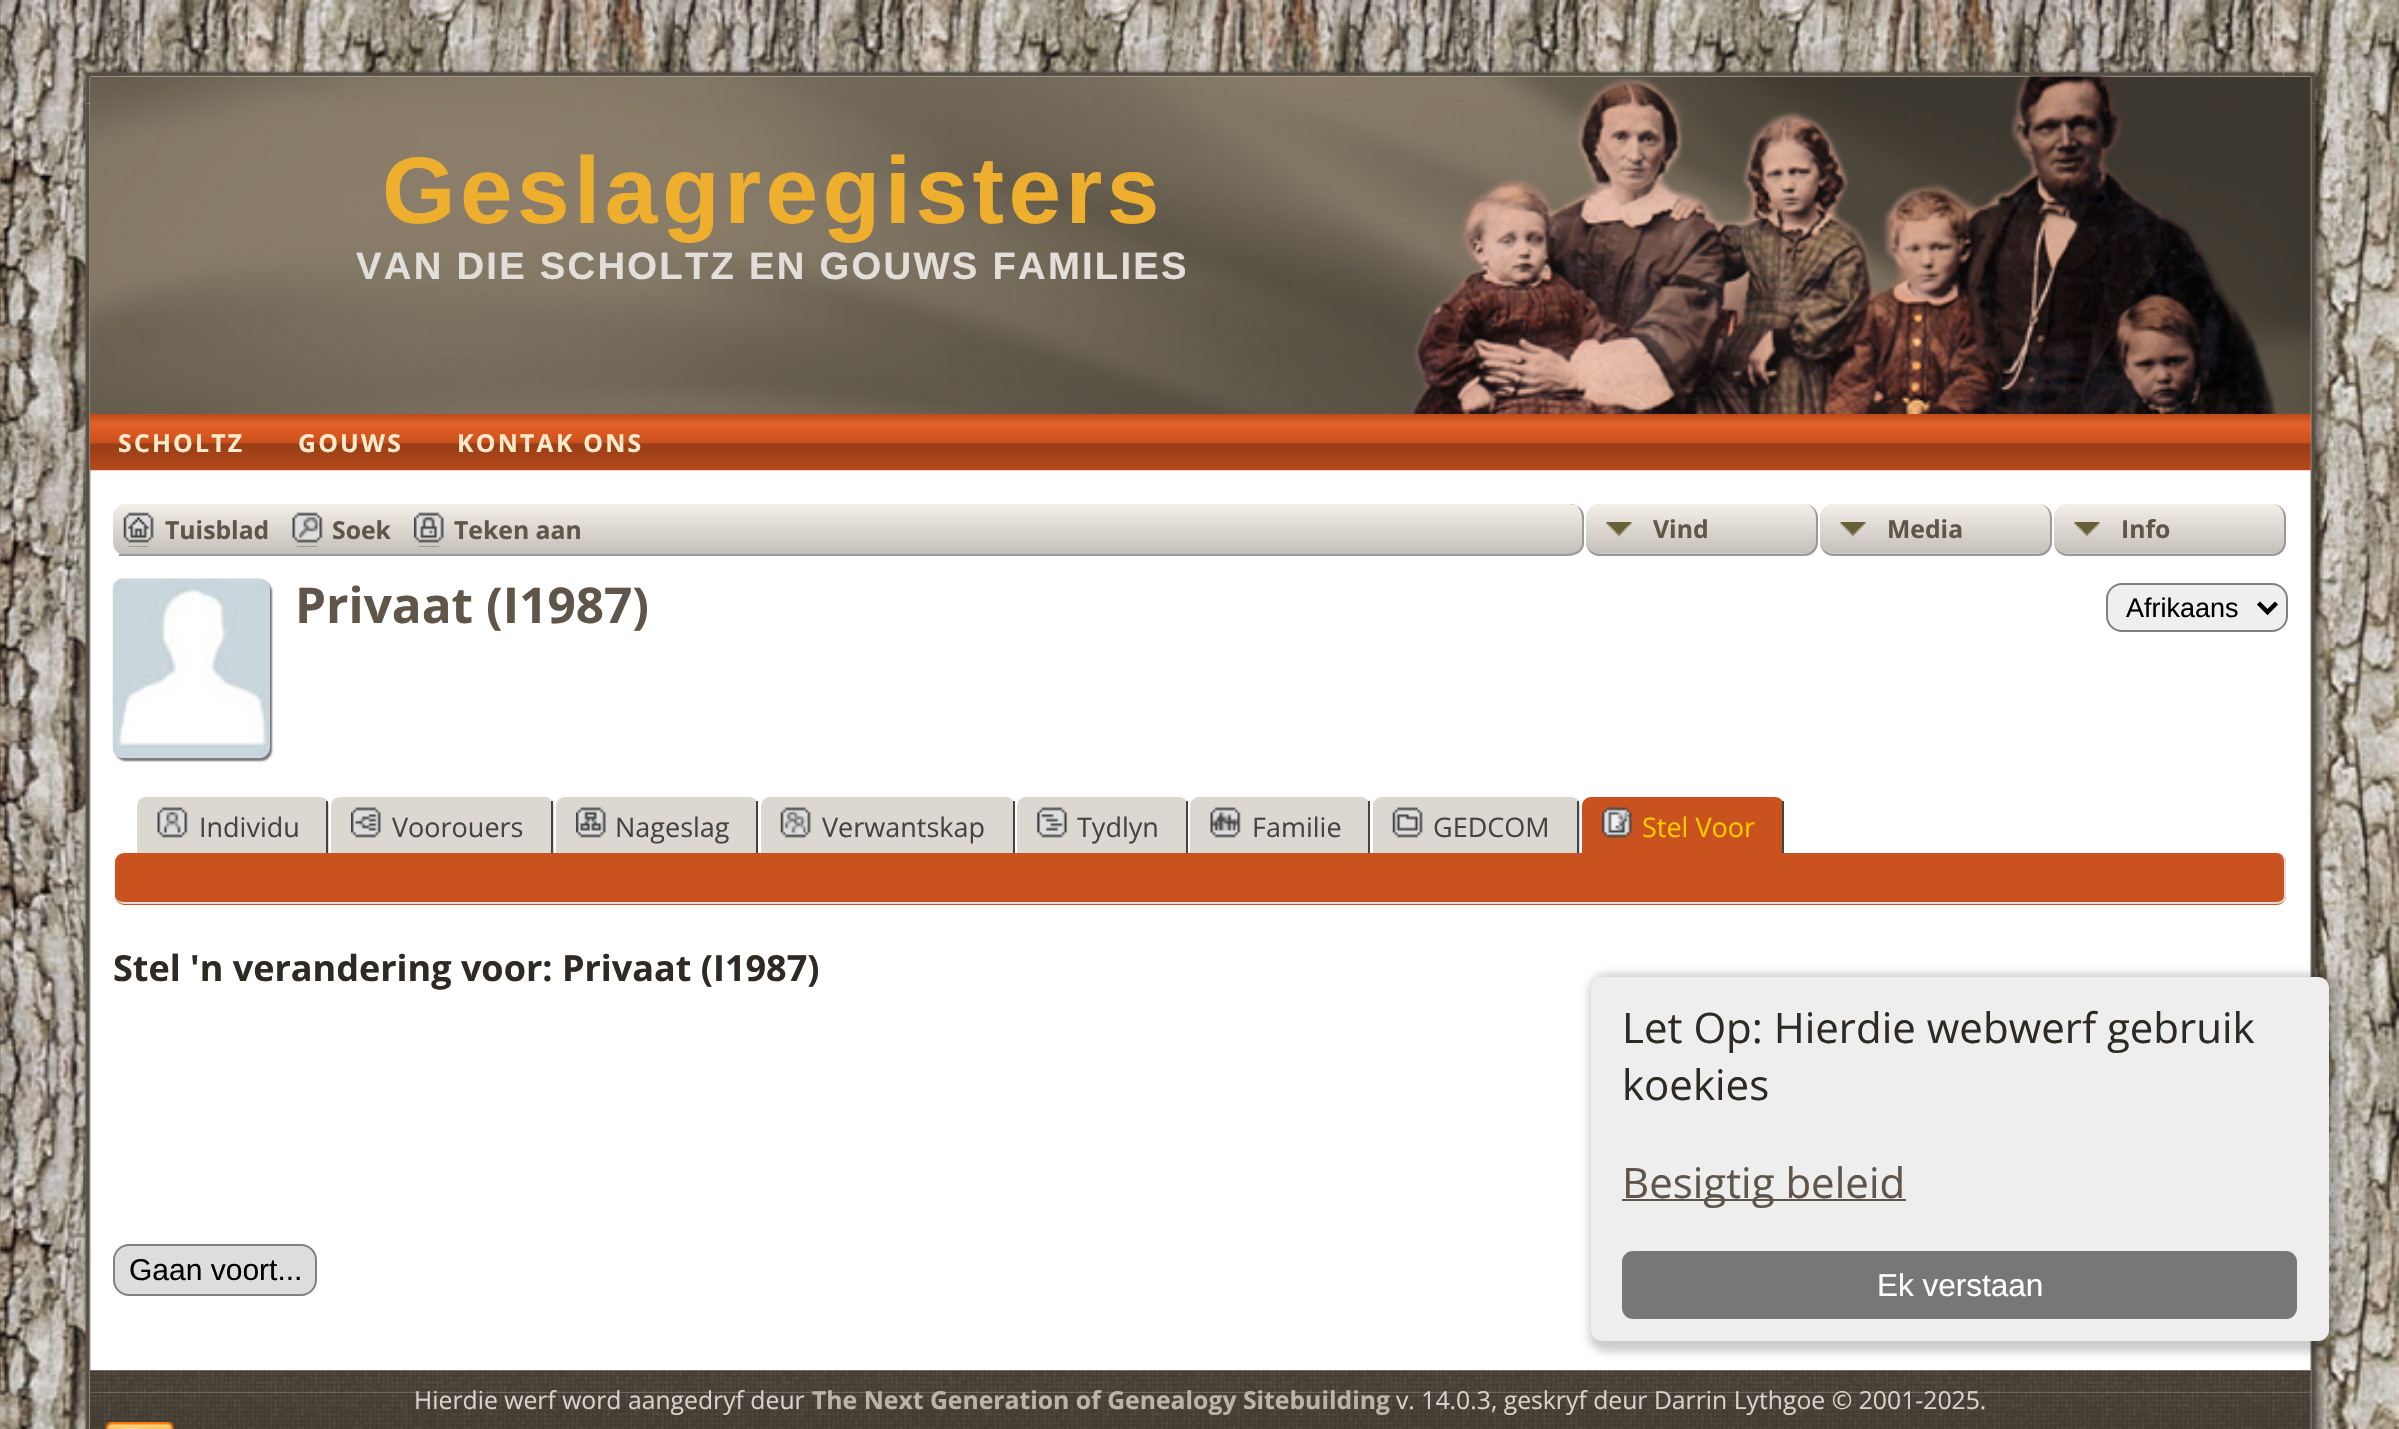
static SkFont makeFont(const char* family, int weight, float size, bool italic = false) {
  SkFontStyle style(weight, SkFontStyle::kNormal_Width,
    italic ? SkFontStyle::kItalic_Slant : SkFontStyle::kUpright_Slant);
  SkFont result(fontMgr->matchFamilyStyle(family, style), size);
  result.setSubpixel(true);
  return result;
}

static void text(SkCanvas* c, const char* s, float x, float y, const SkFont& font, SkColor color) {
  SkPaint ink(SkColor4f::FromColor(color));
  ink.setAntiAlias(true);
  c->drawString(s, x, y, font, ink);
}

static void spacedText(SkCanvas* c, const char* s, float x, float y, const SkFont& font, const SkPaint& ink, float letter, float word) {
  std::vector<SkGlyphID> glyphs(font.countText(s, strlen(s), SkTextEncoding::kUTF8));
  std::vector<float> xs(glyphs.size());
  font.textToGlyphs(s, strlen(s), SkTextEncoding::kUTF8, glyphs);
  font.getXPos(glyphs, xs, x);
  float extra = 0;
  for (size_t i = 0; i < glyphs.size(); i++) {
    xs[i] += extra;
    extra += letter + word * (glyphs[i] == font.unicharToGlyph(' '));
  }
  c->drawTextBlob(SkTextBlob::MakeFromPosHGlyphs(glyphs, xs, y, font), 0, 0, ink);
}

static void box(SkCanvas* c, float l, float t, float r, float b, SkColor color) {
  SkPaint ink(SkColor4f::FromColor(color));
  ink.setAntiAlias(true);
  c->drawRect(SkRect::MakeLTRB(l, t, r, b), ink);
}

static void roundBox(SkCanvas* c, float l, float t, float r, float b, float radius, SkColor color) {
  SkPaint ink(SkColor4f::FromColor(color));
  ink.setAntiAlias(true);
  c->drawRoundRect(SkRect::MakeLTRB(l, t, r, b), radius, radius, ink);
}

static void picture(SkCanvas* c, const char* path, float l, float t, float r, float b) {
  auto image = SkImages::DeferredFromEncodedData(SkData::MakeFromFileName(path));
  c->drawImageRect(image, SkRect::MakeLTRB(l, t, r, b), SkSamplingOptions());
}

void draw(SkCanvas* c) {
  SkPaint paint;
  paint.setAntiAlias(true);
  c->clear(0xffffffff);
  picture(c, "img_01.png", 0, 0, 2399, 1429);
  picture(c, "img_02.png", 83, 69, 117, 104);
  picture(c, "img_04.png", 2283, 69, 2324, 104);
  picture(c, "img_03.png", 117, 69, 2284, 77);
  picture(c, "img_05.png", 83, 103, 117, 1429);
  picture(c, "img_27.png", 2284, 103, 2324, 1429);
  picture(c, "img_06.png", 90, 76, 2311, 414);
  SkFont face1 = makeFont("Liberation Sans", 700, 94.5f);
  paint.setColor(0xffefaf2e);
  spacedText(c, "Geslagregisters", 382, 223, face1, paint, 4.5f, 0);
  SkFont face2 = makeFont("Liberation Sans", 700, 38.25f);
  paint.setColor(0xffe2dfda);
  spacedText(c, "VAN DIE SCHOLTZ EN GOUWS FAMILIES", 356, 279, face2, paint, 2.25f, 0);
  picture(c, "img_07.png", 1410, 76, 2277, 414);
  box(c, 117, 470, 2284, 1393, 0xffffffff);
  picture(c, "img_08.png", 90, 414, 2311, 471);
  SkFont face3 = makeFont("Open Sans", 700, 24.75f);
  paint.setColor(0xfffbebcb);
  spacedText(c, "SCHOLTZ", 118, 452, face3, paint, 2.25f, 0);
  spacedText(c, "GOUWS", 298, 452, face3, paint, 2.25f, 0);
  spacedText(c, "KONTAK ONS", 457, 452, face3, paint, 2.25f, 0);
  roundBox(c, 113, 504, 2288, 556, 14, 0xffdcd7d1);
  c->save();
  c->clipPath(SkPathBuilder().moveTo(127, 504).lineTo(2274, 504).cubicTo(2281.5f, 504, 2288, 510.5f, 2288, 518).lineTo(2288, 542).cubicTo(2288, 549.5f, 2281.5f, 556, 2274, 556).lineTo(127, 556).cubicTo(119.5f, 556, 113, 549.5f, 113, 542).lineTo(113, 518).cubicTo(113, 510.5f, 119.5f, 504, 127, 504).close().detach(), true);
  {
    const SkColor colors[] = {0xfff5efe9, 0xffc5bfb9};
    const float stops[] = {0, 1};
    const SkPoint ends[] = {{1200, 504}, {1200, 554}};
    paint.setShader(SkGradientShader::MakeLinear(ends, colors, stops, 2, SkTileMode::kClamp));
    paint.setAlpha(255);
  }
  c->drawPath(SkPathBuilder().moveTo(127, 504).lineTo(2274, 504).cubicTo(2281.5f, 504, 2288, 510.5f, 2288, 518).lineTo(2288, 554).lineTo(113, 554).lineTo(113, 518).cubicTo(113, 510.5f, 119.5f, 504, 127, 504).close().detach(), paint);
  c->restore();
  box(c, 119, 554, 1559, 556, 0xff999999);
  picture(c, "img_09.png", 123, 512, 154, 547);
  text(c, "Tuisblad", 165, 539, face3, 0xff5f5649);
  picture(c, "img_10.png", 292, 512, 323, 547);
  text(c, "Soek", 332, 539, face3, 0xff5f5649);
  picture(c, "img_11.png", 414, 512, 444, 547);
  text(c, "Teken aan", 454, 539, face3, 0xff5f5649);
  box(c, 1570, 504, 2288, 556, 0xffffffff);
  c->save();
  c->clipPath(SkPathBuilder().moveTo(1559, 504).lineTo(1570, 504).cubicTo(1577.5f, 504, 1584, 510.5f, 1584, 518).lineTo(1584, 542).cubicTo(1584, 549.5f, 1577.5f, 556, 1570, 556).lineTo(1559, 556).close().detach(), true);
  {
    const SkColor colors[] = {0xfff5efe9, 0xffc5bfb9};
    const float stops[] = {0, 1};
    const SkPoint ends[] = {{1571, 504}, {1571, 554}};
    paint.setShader(SkGradientShader::MakeLinear(ends, colors, stops, 2, SkTileMode::kClamp));
    paint.setAlpha(255);
  }
  c->drawRect(SkRect::MakeLTRB(1559, 504, 1584, 554), paint);
  {
    const SkColor colors[] = {0xfff5efe9, 0xffc5bfb9};
    const float stops[] = {0, 1};
    const SkPoint ends[] = {{1571, 554}, {1571, 603}};
    paint.setShader(SkGradientShader::MakeLinear(ends, colors, stops, 2, SkTileMode::kClamp));
    paint.setAlpha(255);
  }
  c->drawRect(SkRect::MakeLTRB(1559, 554, 1584, 556), paint);
  c->restore();
  paint.setShader(nullptr);
  paint.setColor(0xff999999);
  c->drawPath(SkPathBuilder(SkPathFillType::kEvenOdd).moveTo(1559, 504).cubicTo(1569, 504, 1581, 502, 1584, 515).lineTo(1584, 545).cubicTo(1581, 557, 1569, 556, 1559, 556).close().moveTo(1559, 504).lineTo(1573, 504).cubicTo(1584, 507, 1582, 522, 1582, 530).lineTo(1582, 545).cubicTo(1579, 555, 1567, 554, 1559, 554).close().detach(), paint);
  roundBox(c, 1586, 504, 1818, 556, 14, 0xffdcd7d1);
  picture(c, "img_12.png", 1586, 504, 1816, 554);
  c->drawPath(SkPathBuilder(SkPathFillType::kEvenOdd).moveTo(1600, 504).lineTo(1804, 504).cubicTo(1812, 504, 1818, 510, 1818, 518).lineTo(1818, 542).cubicTo(1818, 550, 1812, 556, 1804, 556).lineTo(1600, 556).cubicTo(1592, 556, 1586, 550, 1586, 542).lineTo(1586, 518).cubicTo(1586, 510, 1592, 504, 1600, 504).close().moveTo(1600, 504).lineTo(1804, 504).cubicTo(1811, 504, 1816, 510, 1816, 518).lineTo(1816, 542).cubicTo(1816, 548, 1811, 554, 1804, 554).lineTo(1600, 554).cubicTo(1592, 554, 1586, 548, 1586, 542).lineTo(1586, 518).cubicTo(1586, 510, 1592, 504, 1600, 504).close().detach(), paint);
  text(c, "Vind", 1653, 538, face3, 0xff5f5649);
  roundBox(c, 1820, 504, 2052, 556, 14, 0xffdcd7d1);
  picture(c, "img_13.png", 1820, 504, 2050, 554);
  c->drawPath(SkPathBuilder(SkPathFillType::kEvenOdd).moveTo(1834, 504).lineTo(2038, 504).cubicTo(2046, 504, 2052, 510, 2052, 518).lineTo(2052, 542).cubicTo(2052, 550, 2046, 556, 2038, 556).lineTo(1834, 556).cubicTo(1826, 556, 1820, 550, 1820, 542).lineTo(1820, 518).cubicTo(1820, 510, 1826, 504, 1834, 504).close().moveTo(1834, 504).lineTo(2038, 504).cubicTo(2045, 504, 2050, 510, 2050, 518).lineTo(2050, 542).cubicTo(2050, 548, 2045, 554, 2038, 554).lineTo(1834, 554).cubicTo(1826, 554, 1820, 548, 1820, 542).lineTo(1820, 518).cubicTo(1820, 510, 1826, 504, 1834, 504).close().detach(), paint);
  text(c, "Media", 1887, 538, face3, 0xff5f5649);
  roundBox(c, 2054, 504, 2286, 556, 14, 0xffdcd7d1);
  picture(c, "img_14.png", 2054, 504, 2284, 554);
  c->drawPath(SkPathBuilder(SkPathFillType::kEvenOdd).moveTo(2068, 504).lineTo(2272, 504).cubicTo(2280, 504, 2286, 510, 2286, 518).lineTo(2286, 542).cubicTo(2286, 550, 2280, 556, 2272, 556).lineTo(2068, 556).cubicTo(2060, 556, 2054, 550, 2054, 542).lineTo(2054, 518).cubicTo(2054, 510, 2060, 504, 2068, 504).close().moveTo(2068, 504).lineTo(2272, 504).cubicTo(2279, 504, 2284, 510, 2284, 518).lineTo(2284, 542).cubicTo(2284, 548, 2279, 554, 2272, 554).lineTo(2068, 554).cubicTo(2060, 554, 2054, 548, 2054, 542).lineTo(2054, 518).cubicTo(2054, 510, 2060, 504, 2068, 504).close().detach(), paint);
  text(c, "Info", 2121, 538, face3, 0xff5f5649);
  paint.setColor(0xff777777);
  paint.setMaskFilter(SkMaskFilter::MakeBlur(kNormal_SkBlurStyle, 1));
  c->drawRoundRect(SkRect::MakeLTRB(115, 581, 272, 761), 11, 11, paint);
  paint.setMaskFilter(nullptr);
  picture(c, "img_15.png", 112, 578, 270, 759);
  SkFont face4 = makeFont("Open Sans", 700, 49.5f);
  text(c, "Privaat (I1987)", 295, 623, face4, 0xff5f5649);
  paint.setColor(0xffefefef);
  c->drawRoundRect(SkRect::MakeLTRB(2107, 584, 2287, 631), 15, 15, paint);
  paint.setStyle(SkPaint::kStroke_Style);
  paint.setStrokeWidth(2);
  paint.setColor(0xff808080);
  c->drawRoundRect(SkRect::MakeLTRB(2107, 584, 2287, 631), 15, 15, paint);
  paint.setStrokeWidth(4.5f);
  paint.setColor(0xff000000);
  c->drawPath(SkPathBuilder().moveTo(2258.5f, 603).lineTo(2267.5f, 612).lineTo(2276.5f, 603).detach(), paint);
  SkFont face5 = makeFont("Liberation Sans", 400, 27);
  text(c, "Afrikaans", 2126, 617, face5, 0xff000000);
  paint.setStyle(SkPaint::kFill_Style);
  paint.setColor(0xffdcd7d1);
  c->drawPath(SkPathBuilder().moveTo(146, 797).lineTo(320, 797).cubicTo(325, 797, 329, 801, 329, 806).lineTo(329, 853).lineTo(137, 853).lineTo(137, 806).cubicTo(137, 801, 141, 797, 146, 797).close().detach(), paint);
  box(c, 326, 801, 328, 853, 0xff444444);
  picture(c, "img_16.png", 157, 807, 188, 838);
  SkFont face6 = makeFont("Open Sans", 400, 27);
  text(c, "Individu", 199, 837, face6, 0xff444444);
  c->drawPath(SkPathBuilder().moveTo(340, 797).lineTo(545, 797).cubicTo(550, 797, 554, 801, 554, 806).lineTo(554, 853).lineTo(331, 853).lineTo(331, 806).cubicTo(331, 801, 335, 797, 340, 797).close().detach(), paint);
  box(c, 551, 801, 553, 853, 0xff444444);
  picture(c, "img_17.png", 351, 807, 381, 838);
  text(c, "Voorouers", 392, 837, face6, 0xff444444);
  c->drawPath(SkPathBuilder().moveTo(565, 797).lineTo(749, 797).cubicTo(754, 797, 758, 801, 758, 806).lineTo(758, 853).lineTo(556, 853).lineTo(556, 806).cubicTo(556, 801, 560, 797, 565, 797).close().detach(), paint);
  box(c, 756, 801, 758, 853, 0xff444444);
  picture(c, "img_18.png", 576, 807, 606, 838);
  text(c, "Nageslag", 615, 837, face6, 0xff444444);
  c->drawPath(SkPathBuilder().moveTo(770, 797).lineTo(1006, 797).cubicTo(1011, 797, 1015, 801, 1015, 806).lineTo(1015, 853).lineTo(761, 853).lineTo(761, 806).cubicTo(761, 801, 765, 797, 770, 797).close().detach(), paint);
  box(c, 1013, 801, 1015, 853, 0xff444444);
  picture(c, "img_19.png", 780, 807, 811, 838);
  text(c, "Verwantskap", 822, 837, face6, 0xff444444);
  c->drawPath(SkPathBuilder().moveTo(1026, 797).lineTo(1179, 797).cubicTo(1184, 797, 1188, 801, 1188, 806).lineTo(1188, 853).lineTo(1017, 853).lineTo(1017, 806).cubicTo(1017, 801, 1021, 797, 1026, 797).close().detach(), paint);
  box(c, 1186, 801, 1188, 853, 0xff444444);
  picture(c, "img_20.png", 1037, 807, 1068, 838);
  text(c, "Tydlyn", 1077, 837, face6, 0xff444444);
  c->drawPath(SkPathBuilder().moveTo(1199, 797).lineTo(1361, 797).cubicTo(1366, 797, 1370, 801, 1370, 806).lineTo(1370, 853).lineTo(1190, 853).lineTo(1190, 806).cubicTo(1190, 801, 1194, 797, 1199, 797).close().detach(), paint);
  box(c, 1368, 801, 1370, 853, 0xff444444);
  picture(c, "img_21.png", 1210, 807, 1241, 838);
  text(c, "Familie", 1252, 837, face6, 0xff444444);
  c->drawPath(SkPathBuilder().moveTo(1382, 797).lineTo(1571, 797).cubicTo(1576, 797, 1580, 801, 1580, 806).lineTo(1580, 853).lineTo(1373, 853).lineTo(1373, 806).cubicTo(1373, 801, 1377, 797, 1382, 797).close().detach(), paint);
  box(c, 1577, 801, 1579, 853, 0xff444444);
  picture(c, "img_22.png", 1392, 807, 1423, 838);
  text(c, "GEDCOM", 1433, 837, face6, 0xff444444);
  paint.setColor(0xffca521e);
  c->drawPath(SkPathBuilder().moveTo(1591, 797).lineTo(1775, 797).cubicTo(1780, 797, 1784, 801, 1784, 806).lineTo(1784, 853).lineTo(1582, 853).lineTo(1582, 806).cubicTo(1582, 801, 1586, 797, 1591, 797).close().detach(), paint);
  box(c, 1782, 801, 1784, 853, 0xff444444);
  picture(c, "img_23.png", 1602, 807, 1632, 838);
  text(c, "Stel Voor", 1642, 837, face6, 0xffffcc00);
  roundBox(c, 115, 853, 2286, 905, 9, 0xffca521e);
  paint.setColor(0xffdddddd);
  c->drawPath(SkPathBuilder(SkPathFillType::kEvenOdd).moveTo(124, 853).lineTo(2277, 853).cubicTo(2282, 853, 2286, 857, 2286, 862).lineTo(2286, 896).cubicTo(2286, 900, 2282, 904, 2277, 904).lineTo(124, 904).cubicTo(119, 904, 115, 900, 115, 896).lineTo(115, 862).cubicTo(115, 857, 119, 853, 124, 853).close().moveTo(124, 853).lineTo(2277, 853).cubicTo(2281, 853, 2284, 857, 2284, 862).lineTo(2284, 896).cubicTo(2284, 899, 2281, 902, 2277, 902).lineTo(124, 902).cubicTo(119, 902, 115, 899, 115, 896).lineTo(115, 862).cubicTo(115, 857, 119, 853, 124, 853).close().detach(), paint);
  SkFont face7 = makeFont("Open Sans", 700, 36);
  text(c, "Stel 'n verandering voor: Privaat (I1987)", 113, 981, face7, 0xff2e2a23);
  c->drawRoundRect(SkRect::MakeLTRB(114, 1245, 316, 1295), 15, 15, paint);
  paint.setStyle(SkPaint::kStroke_Style);
  paint.setStrokeWidth(2);
  paint.setColor(0xff808080);
  c->drawRoundRect(SkRect::MakeLTRB(114, 1245, 316, 1295), 15, 15, paint);
  SkFont face8 = makeFont("Liberation Sans", 400, 30);
  text(c, "Gaan voort...", 129, 1280, face8, 0xff000000);
  paint.setStyle(SkPaint::kFill_Style);
  paint.setColor(0x33000000);
  paint.setMaskFilter(SkMaskFilter::MakeBlur(kNormal_SkBlurStyle, 4.5f));
  c->drawRoundRect(SkRect::MakeLTRB(1589, 974, 2340, 1352), 18, 18, paint);
  paint.setMaskFilter(nullptr);
  roundBox(c, 1591, 977, 2329, 1341, 11, 0xffeeeeee);
  SkFont face9 = makeFont("Open Sans", 400, 42);
  text(c, "Let Op: Hierdie webwerf gebruik", 1622, 1043, face9, 0xff2e2a23);
  text(c, "koekies", 1622, 1100, face9, 0xff2e2a23);
  box(c, 1622, 1199, 1906, 1201, 0xff5f5649);
  text(c, "Besigtig beleid", 1622, 1198, face9, 0xff5f5649);
  roundBox(c, 1622, 1251, 2297, 1319, 11, 0xff777777);
  SkFont face10 = makeFont("Liberation Sans", 400, 31.5f);
  text(c, "Ek verstaan", 1877, 1296, face10, 0xffffffff);
  picture(c, "img_24.png", 90, 1370, 2311, 1393);
  picture(c, "img_26.png", 90, 1392, 2311, 1429);
  SkFont face11 = makeFont("Open Sans", 400, 24.75f);
  text(c, "Hierdie werf word aangedryf deur", 414, 1409, face11, 0xffd7d2cb);
  text(c, "The Next Generation of Genealogy Sitebuilding", 812, 1409, face3, 0xffbcb4a9);
  text(c, "v. 14.0.3, geskryf deur Darrin Lythgoe © 2001-2025.", 1396, 1409, face11, 0xffd7d2cb);
  picture(c, "img_25.png", 105, 1422, 174, 1429);
}
